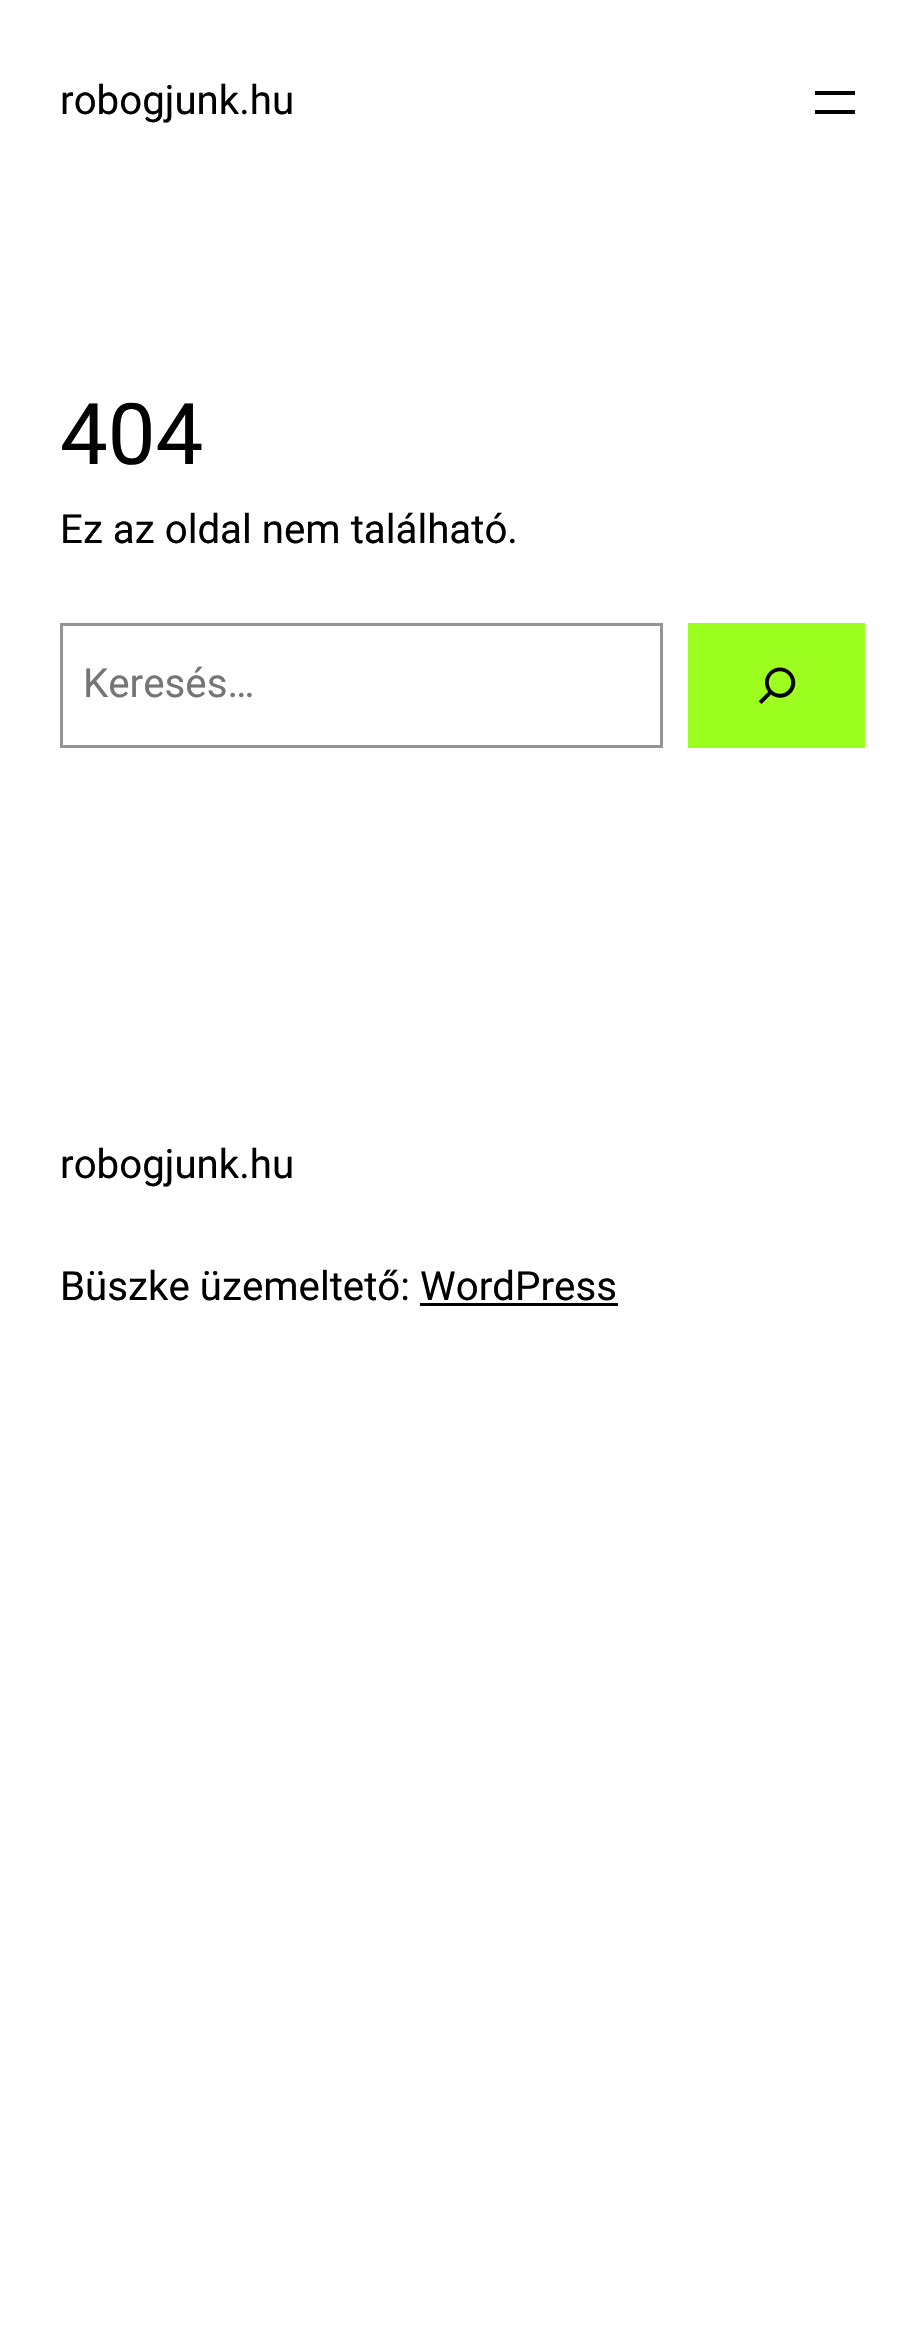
static SkFont makeFont(const char* family, int weight, float size, bool italic = false) {
  SkFontStyle style(weight, SkFontStyle::kNormal_Width,
    italic ? SkFontStyle::kItalic_Slant : SkFontStyle::kUpright_Slant);
  SkFont result(fontMgr->matchFamilyStyle(family, style), size);
  result.setSubpixel(true);
  return result;
}

static void text(SkCanvas* c, const char* s, float x, float y, const SkFont& font, SkColor color) {
  SkPaint ink(SkColor4f::FromColor(color));
  ink.setAntiAlias(true);
  c->drawString(s, x, y, font, ink);
}

static void box(SkCanvas* c, float l, float t, float r, float b, SkColor color) {
  SkPaint ink(SkColor4f::FromColor(color));
  ink.setAntiAlias(true);
  c->drawRect(SkRect::MakeLTRB(l, t, r, b), ink);
}

static void picture(SkCanvas* c, const char* path, float l, float t, float r, float b) {
  auto image = SkImages::DeferredFromEncodedData(SkData::MakeFromFileName(path));
  c->drawImageRect(image, SkRect::MakeLTRB(l, t, r, b), SkSamplingOptions());
}

void draw(SkCanvas* c) {
  SkPaint paint;
  paint.setAntiAlias(true);
  c->clear(0xffffffff);
  SkFont face1 = makeFont("Roboto", 400, 40.25f);
  text(c, "robogjunk.hu", 60, 114, face1, 0xff000000);
  box(c, 815, 91, 855, 95, 0xff000000);
  box(c, 815, 110, 855, 114, 0xff000000);
  SkFont face2 = makeFont("Roboto", 400, 85);
  text(c, "404", 60, 464, face2, 0xff000000);
  text(c, "Ez az oldal nem található.", 60, 543, face1, 0xff000000);
  paint.setStyle(SkPaint::kStroke_Style);
  paint.setStrokeWidth(3);
  paint.setColor(0xff949494);
  c->drawRect(SkRect::MakeLTRB(61.5f, 624.5f, 661.5f, 746.5f), paint);
  text(c, "Keresés…", 83, 697, face1, 0xff757575);
  box(c, 688, 623, 865, 748, 0xff9dff20);
  picture(c, "img_01.png", 758, 667, 796, 704);
  text(c, "robogjunk.hu", 60, 1178, face1, 0xff000000);
  text(c, "Büszke üzemeltető: WordPress", 60, 1300, face1, 0xff000000);
  box(c, 420, 1303, 618, 1306, 0xff000000);
}
